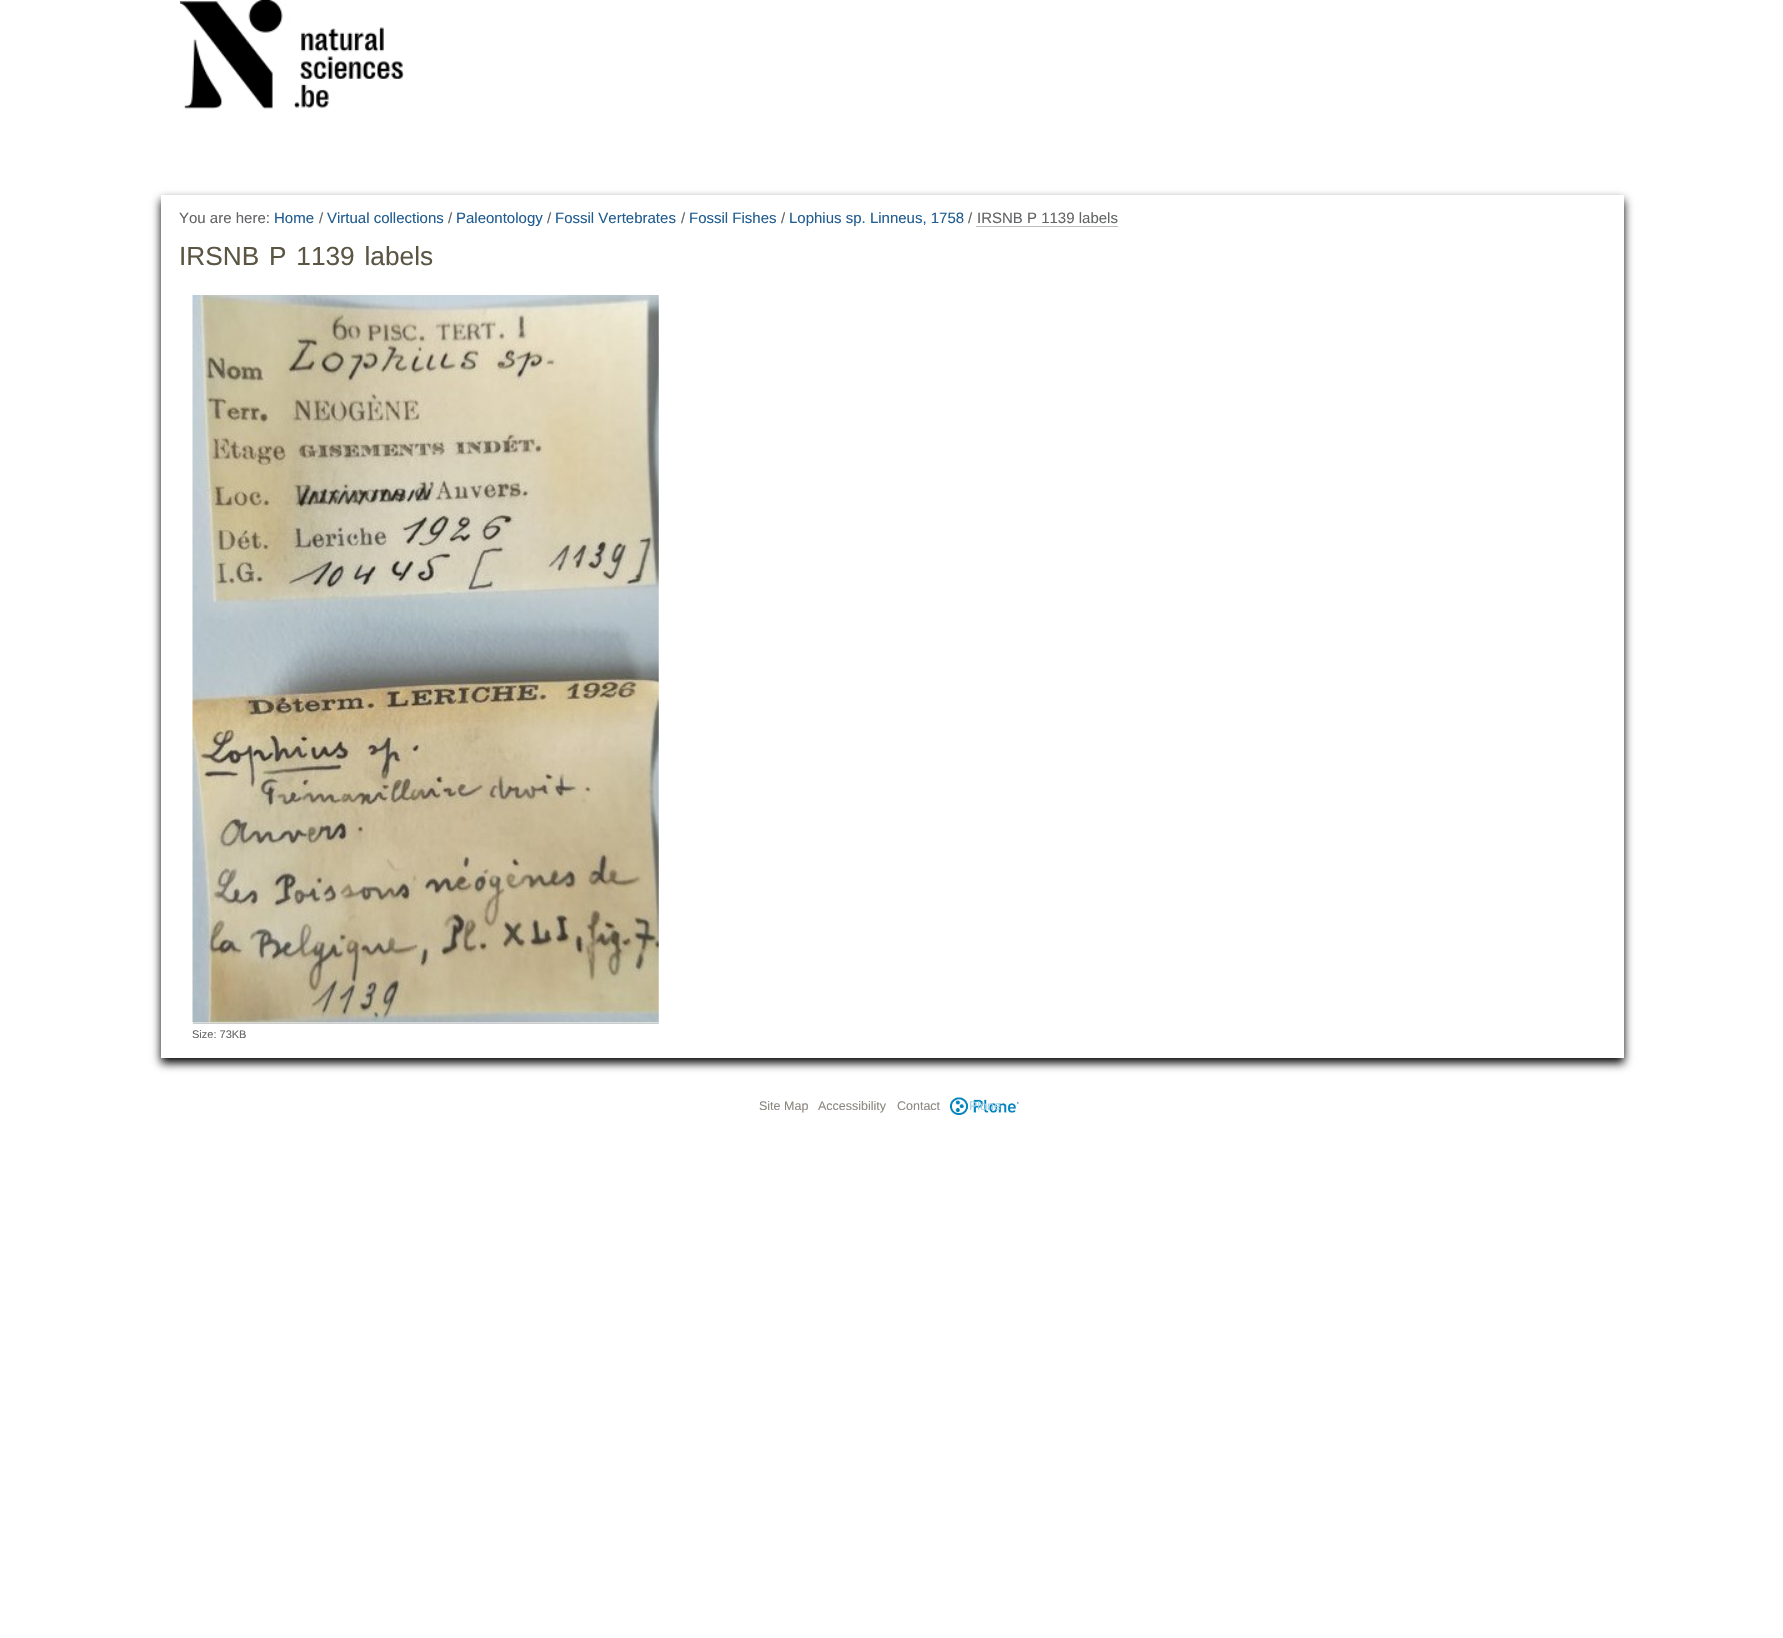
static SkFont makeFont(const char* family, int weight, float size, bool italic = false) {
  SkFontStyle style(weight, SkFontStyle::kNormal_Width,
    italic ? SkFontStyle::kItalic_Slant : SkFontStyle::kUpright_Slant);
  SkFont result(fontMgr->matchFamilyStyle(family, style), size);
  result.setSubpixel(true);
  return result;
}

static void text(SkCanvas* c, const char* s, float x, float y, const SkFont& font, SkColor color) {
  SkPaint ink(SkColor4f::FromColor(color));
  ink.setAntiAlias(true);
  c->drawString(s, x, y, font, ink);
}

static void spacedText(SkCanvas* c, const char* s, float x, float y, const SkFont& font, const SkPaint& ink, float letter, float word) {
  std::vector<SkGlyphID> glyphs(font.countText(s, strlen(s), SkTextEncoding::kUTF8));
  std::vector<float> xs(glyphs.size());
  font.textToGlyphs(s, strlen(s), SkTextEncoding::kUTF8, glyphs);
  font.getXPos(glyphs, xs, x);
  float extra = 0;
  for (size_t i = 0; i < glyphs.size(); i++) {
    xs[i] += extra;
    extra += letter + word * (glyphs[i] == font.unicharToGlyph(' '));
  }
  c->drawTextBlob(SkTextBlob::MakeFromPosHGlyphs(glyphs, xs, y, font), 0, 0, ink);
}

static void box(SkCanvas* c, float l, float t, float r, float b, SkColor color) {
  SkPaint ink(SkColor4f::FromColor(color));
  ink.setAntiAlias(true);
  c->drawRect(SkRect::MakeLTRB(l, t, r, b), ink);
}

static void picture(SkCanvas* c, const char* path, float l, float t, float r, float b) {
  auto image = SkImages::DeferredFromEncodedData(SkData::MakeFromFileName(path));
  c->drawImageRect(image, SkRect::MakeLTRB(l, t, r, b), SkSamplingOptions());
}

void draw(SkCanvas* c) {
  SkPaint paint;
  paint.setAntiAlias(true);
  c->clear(0xffffffff);
  picture(c, "img_01.png", 180, 0, 404, 109);
  paint.setColor(0xff000000);
  paint.setMaskFilter(SkMaskFilter::MakeBlur(kNormal_SkBlurStyle, 4.5f));
  c->drawRect(SkRect::MakeLTRB(161, 200, 1624, 1063), paint);
  paint.setMaskFilter(nullptr);
  box(c, 161, 195, 1624, 1058, 0xffffffff);
  SkFont face1 = makeFont("Liberation Sans", 400, 15);
  text(c, "You are here:", 179, 223, face1, 0xff636466);
  text(c, "Home", 274, 223, face1, 0xff205c90);
  text(c, "/", 319, 223, face1, 0xff636466);
  text(c, "Virtual collections", 327, 223, face1, 0xff205c90);
  text(c, "/", 448, 223, face1, 0xff636466);
  text(c, "Paleontology", 456, 223, face1, 0xff205c90);
  text(c, "/", 547, 223, face1, 0xff636466);
  text(c, "Fossil Vertebrates", 555, 223, face1, 0xff205c90);
  text(c, "/", 681, 223, face1, 0xff636466);
  text(c, "Fossil Fishes", 689, 223, face1, 0xff205c90);
  text(c, "/", 781, 223, face1, 0xff636466);
  text(c, "Lophius sp. Linneus, 1758", 789, 223, face1, 0xff205c90);
  text(c, "/", 968, 223, face1, 0xff636466);
  text(c, "IRSNB P 1139 labels", 977, 223, face1, 0xff636466);
  box(c, 976, 226, 1118, 227, 0xffbbbbbb);
  SkFont face2 = makeFont("Liberation Sans", 400, 26.25f);
  paint.setColor(0xff5b5644);
  spacedText(c, "IRSNB P 1139 labels", 179, 265, face2, paint, 0, 2.5f);
  box(c, 193, 1023, 659, 1024, 0xffcccccc);
  picture(c, "img_02.png", 192, 295, 659, 1023);
  SkFont face3 = makeFont("Liberation Sans", 400, 11);
  text(c, "Size: 73KB", 192, 1038, face3, 0xff636466);
  SkFont face4 = makeFont("Liberation Sans", 400, 12.5f);
  text(c, "Site Map", 759, 1110, face4, 0xff8c8882);
  text(c, "Accessibility", 818, 1110, face4, 0xff8c8882);
  text(c, "Contact", 897, 1110, face4, 0xff8c8882);
  picture(c, "img_03.png", 950, 1097, 1019, 1115);
  text(c, "Plone", 969, 1110, face4, 0xffa2d1e7);
}
